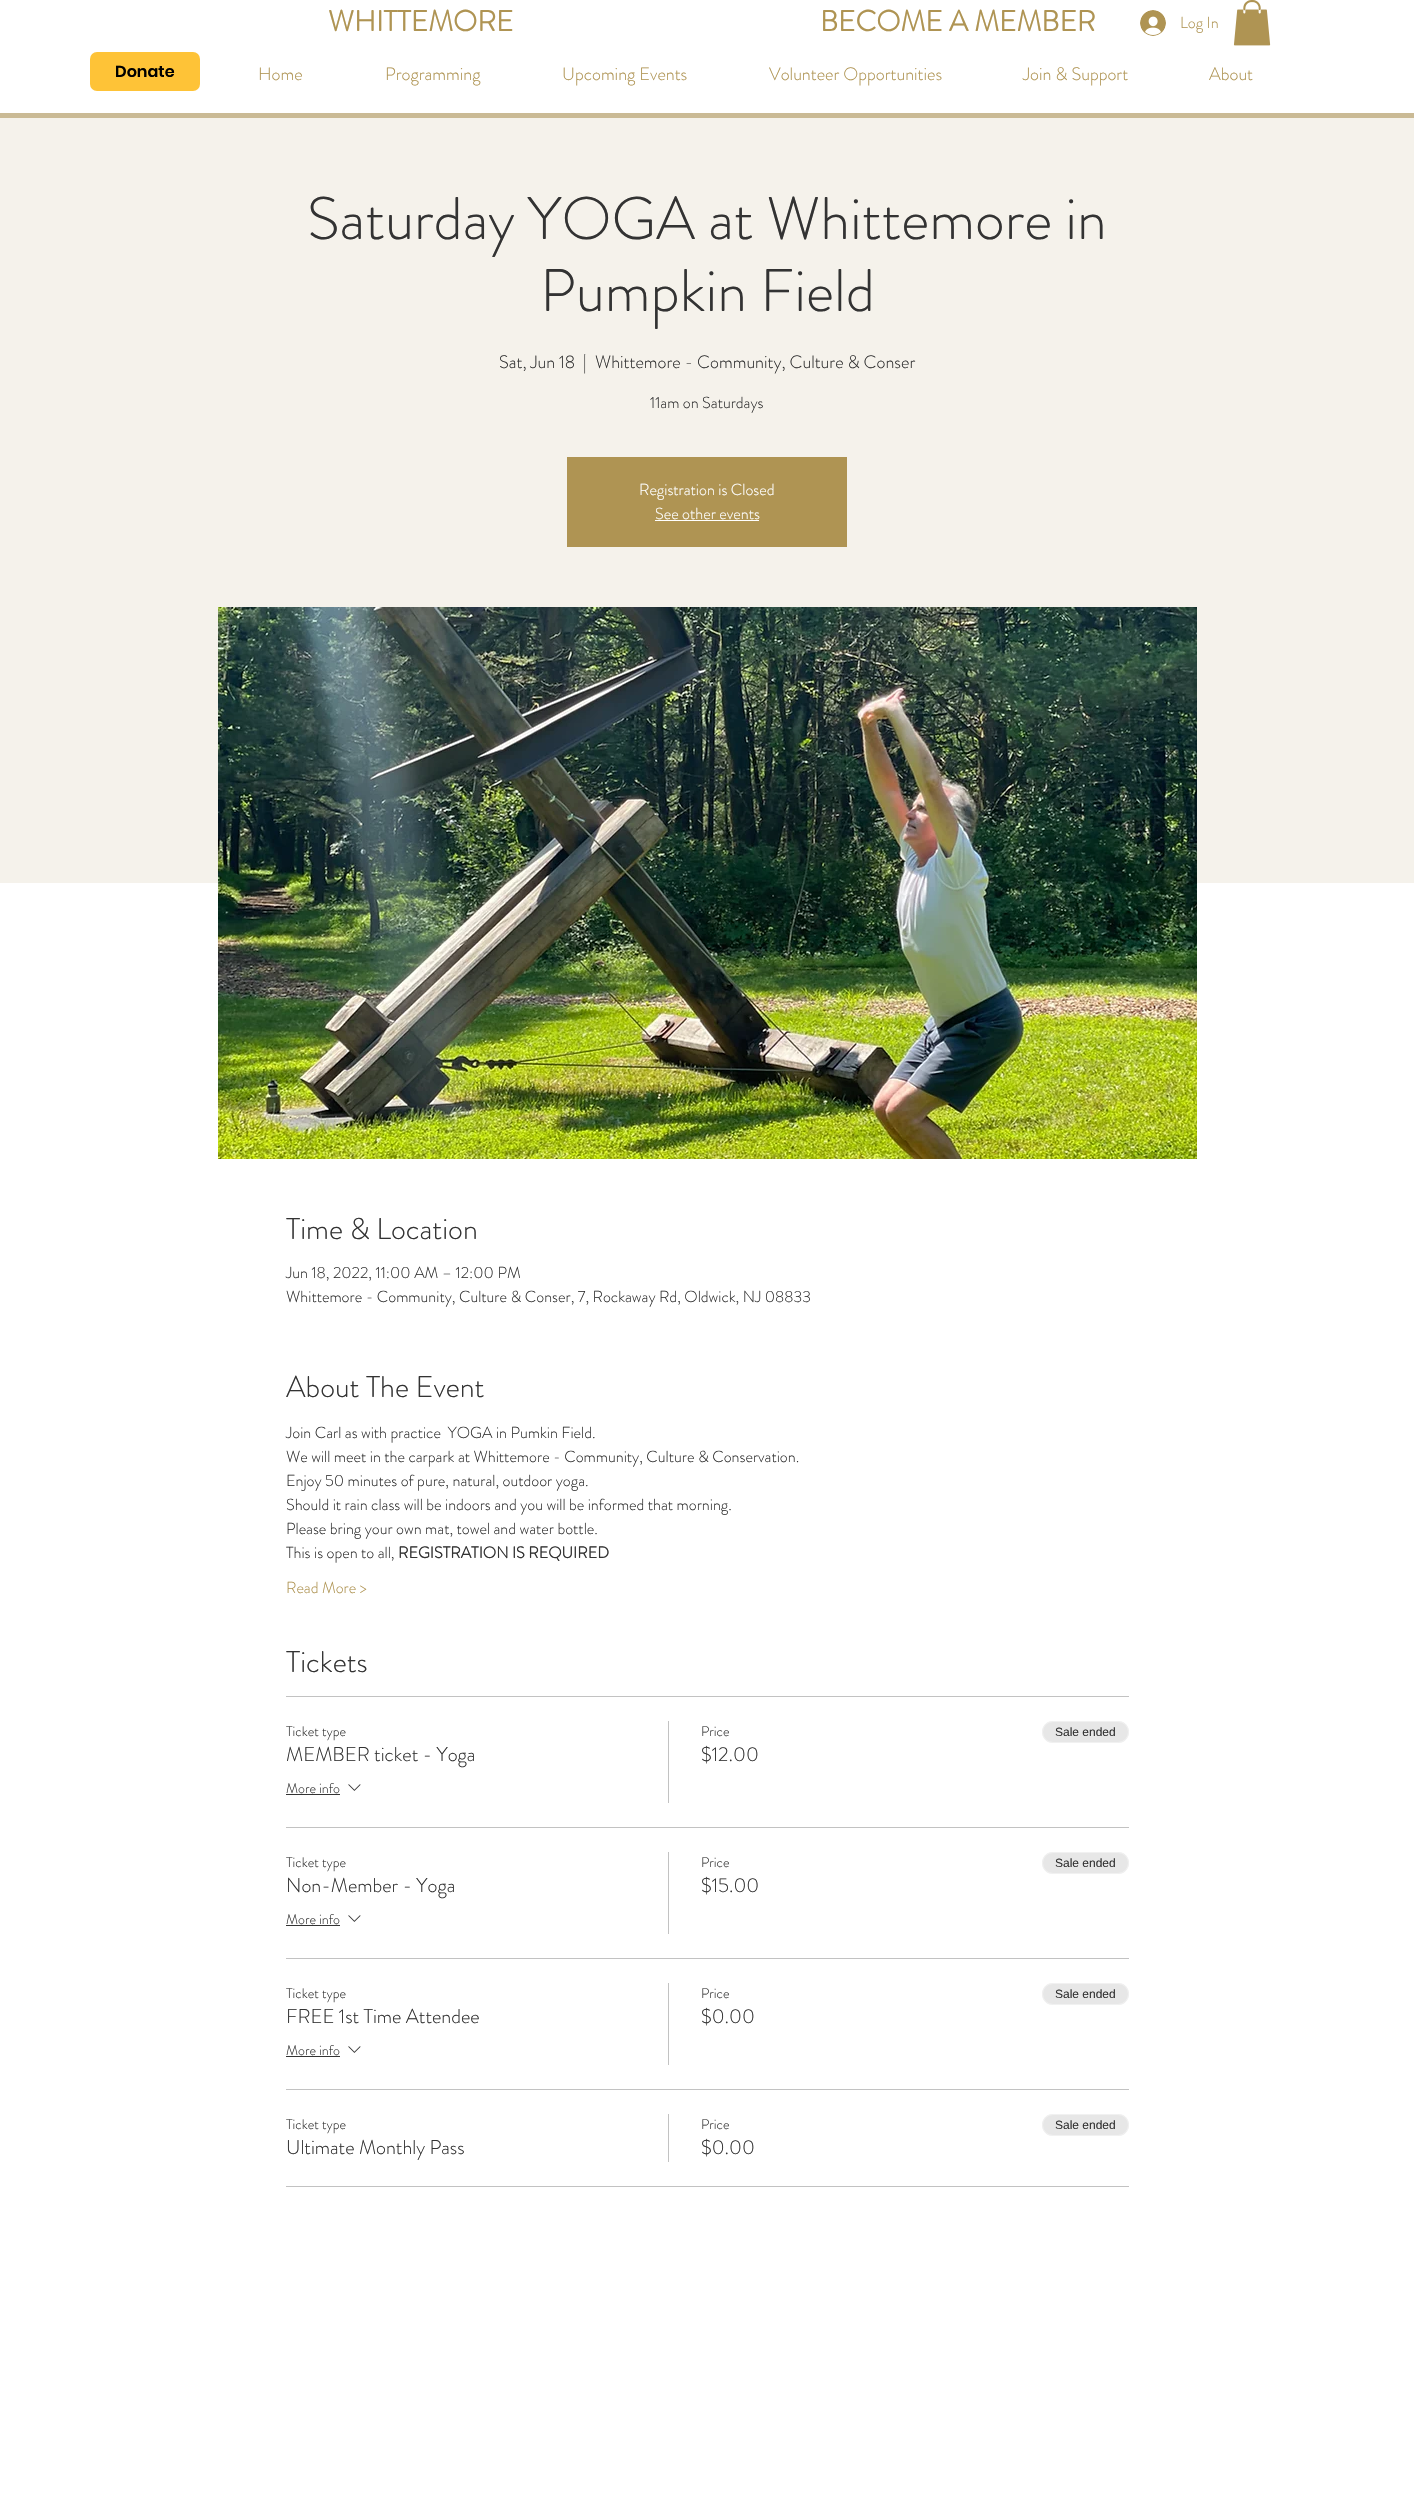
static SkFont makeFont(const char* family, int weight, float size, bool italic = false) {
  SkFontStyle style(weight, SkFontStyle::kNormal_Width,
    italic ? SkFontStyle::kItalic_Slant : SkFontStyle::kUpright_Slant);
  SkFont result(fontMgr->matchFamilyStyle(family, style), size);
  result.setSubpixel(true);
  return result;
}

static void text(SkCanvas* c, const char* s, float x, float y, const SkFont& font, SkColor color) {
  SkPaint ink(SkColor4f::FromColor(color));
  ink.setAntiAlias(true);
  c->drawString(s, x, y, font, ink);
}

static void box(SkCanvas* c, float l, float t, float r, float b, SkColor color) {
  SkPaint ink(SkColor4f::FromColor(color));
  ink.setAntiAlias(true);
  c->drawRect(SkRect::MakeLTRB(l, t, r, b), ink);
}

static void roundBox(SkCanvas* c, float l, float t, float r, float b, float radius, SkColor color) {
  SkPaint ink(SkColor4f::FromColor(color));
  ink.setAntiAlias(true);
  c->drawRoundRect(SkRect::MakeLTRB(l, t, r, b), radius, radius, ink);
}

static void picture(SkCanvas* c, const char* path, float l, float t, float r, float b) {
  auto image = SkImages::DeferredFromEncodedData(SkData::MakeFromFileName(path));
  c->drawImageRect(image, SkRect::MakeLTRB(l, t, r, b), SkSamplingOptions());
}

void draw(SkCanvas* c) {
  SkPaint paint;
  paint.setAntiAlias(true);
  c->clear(0xffffffff);
  SkFont face1 = makeFont("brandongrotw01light", 700, 29);
  text(c, "WHITTEMORE", 328, 31, face1, 0xffaf9453);
  text(c, "BECOME A MEMBER", 820, 31, face1, 0xffaf9453);
  picture(c, "img_01.png", 1140, 10, 1166, 36);
  SkFont face2 = makeFont("brandongrotw01light", 300, 16);
  text(c, "Log In", 1180, 28, face2, 0xffaf9453);
  picture(c, "img_02.png", 1233, 0, 1271, 46);
  roundBox(c, 90, 52, 200, 91, 7, 0xfffec337);
  SkFont face3 = makeFont("Poppins", 600, 16);
  text(c, "Donate", 115, 77, face3, 0xff000000);
  SkFont face4 = makeFont("brandongrotw01light", 300, 18);
  text(c, "Home", 258, 80, face4, 0xffaf9453);
  text(c, "Programming", 385, 80, face4, 0xffaf9453);
  text(c, "Upcoming Events", 562, 80, face4, 0xffaf9453);
  text(c, "Volunteer Opportunities", 769, 80, face4, 0xffaf9453);
  text(c, "Join & Support", 1023, 80, face4, 0xffaf9453);
  text(c, "About", 1209, 80, face4, 0xffaf9453);
  box(c, 0, 113, 1414, 118, 0xffcaba95);
  box(c, 0, 118, 1414, 883, 0xfff5f2eb);
  SkFont face5 = makeFont("brandongrotw01light", 300, 60);
  text(c, "Saturday YOGA at Whittemore in", 307, 239, face5, 0xff333333);
  text(c, "Pumpkin Field", 540, 311, face5, 0xff333333);
  text(c, "Sat, Jun 18", 499, 368, face4, 0xff333333);
  text(c, "|", 583, 368, face4, 0xff333333);
  text(c, "Whittemore - Community, Culture & Conser", 595, 368, face4, 0xff333333);
  text(c, "11am on Saturdays", 650, 408, face2, 0xff333333);
  box(c, 567, 457, 847, 547, 0xffaf9453);
  text(c, "Registration is Closed", 639, 495, face2, 0xffffffff);
  text(c, "See other events", 655, 519, face2, 0xffffffff);
  box(c, 655, 520, 759, 521, 0xffffffff);
  picture(c, "img_03.png", 218, 607, 1197, 1159);
  SkFont face6 = makeFont("brandongrotw01light", 300, 30);
  text(c, "Time & Location", 286, 1239, face6, 0xff333333);
  text(c, "Jun 18, 2022, 11:00 AM – 12:00 PM", 286, 1278, face2, 0xff333333);
  text(c, "Whittemore - Community, Culture & Conser, 7, Rockaway Rd, Oldwick, NJ 08833", 286, 1302, face2, 0xff333333);
  text(c, "About The Event", 286, 1397, face6, 0xff333333);
  text(c, "Join Carl as with practice  YOGA in Pumkin Field.", 286, 1438, face2, 0xff333333);
  text(c, "We will meet in the carpark at Whittemore - Community, Culture & Conservation.", 286, 1462, face2, 0xff333333);
  text(c, "Enjoy 50 minutes of pure, natural, outdoor yoga.", 286, 1486, face2, 0xff333333);
  text(c, "Should it rain class will be indoors and you will be informed that morning.", 286, 1510, face2, 0xff333333);
  text(c, "Please bring your own mat, towel and water bottle.", 286, 1534, face2, 0xff333333);
  text(c, "This is open to all,", 286, 1558, face2, 0xff333333);
  SkFont face7 = makeFont("brandongrotw01light", 700, 16);
  text(c, "REGISTRATION IS REQUIRED", 398, 1558, face7, 0xff333333);
  text(c, "Read More >", 286, 1593, face2, 0xffaf9453);
  text(c, "Tickets", 286, 1672, face6, 0xff333333);
  box(c, 286, 1696, 1129, 1697, 0xffc2c2c2);
  box(c, 286, 1827, 1129, 1828, 0xffc2c2c2);
  SkFont face8 = makeFont("brandongrotw01light", 300, 14);
  text(c, "Ticket type", 286, 1736, face8, 0xff333333);
  SkFont face9 = makeFont("brandongrotw01light", 300, 20);
  text(c, "MEMBER ticket - Yoga", 286, 1761, face9, 0xff333333);
  text(c, "More info", 286, 1793, face8, 0xff333333);
  box(c, 286, 1794, 340, 1795, 0xff333333);
  picture(c, "img_04.png", 348, 1784, 361, 1791);
  box(c, 668, 1721, 669, 1803, 0xffc2c2c2);
  text(c, "Price", 701, 1736, face8, 0xff333333);
  text(c, "$12.00", 701, 1761, face9, 0xff333333);
  roundBox(c, 1042, 1721, 1129, 1743, 11, 0xffe7e7e7);
  paint.setStyle(SkPaint::kStroke_Style);
  paint.setStrokeWidth(1);
  paint.setColor(0x66ffffff);
  c->drawRoundRect(SkRect::MakeLTRB(1042.5f, 1721.5f, 1128.5f, 1742.5f), 10.5f, 10.5f, paint);
  SkFont face10 = makeFont("Liberation Sans", 400, 12);
  text(c, "Sale ended", 1055, 1736, face10, 0xff333333);
  box(c, 286, 1958, 1129, 1959, 0xffc2c2c2);
  text(c, "Ticket type", 286, 1867, face8, 0xff333333);
  text(c, "Non-Member - Yoga", 286, 1892, face9, 0xff333333);
  text(c, "More info", 286, 1924, face8, 0xff333333);
  box(c, 286, 1925, 340, 1926, 0xff333333);
  picture(c, "img_04.png", 348, 1915, 361, 1922);
  box(c, 668, 1852, 669, 1934, 0xffc2c2c2);
  text(c, "Price", 701, 1867, face8, 0xff333333);
  text(c, "$15.00", 701, 1892, face9, 0xff333333);
  roundBox(c, 1042, 1852, 1129, 1874, 11, 0xffe7e7e7);
  c->drawRoundRect(SkRect::MakeLTRB(1042.5f, 1852.5f, 1128.5f, 1873.5f), 10.5f, 10.5f, paint);
  text(c, "Sale ended", 1055, 1867, face10, 0xff333333);
  box(c, 286, 2089, 1129, 2090, 0xffc2c2c2);
  text(c, "Ticket type", 286, 1998, face8, 0xff333333);
  text(c, "FREE 1st Time Attendee", 286, 2023, face9, 0xff333333);
  text(c, "More info", 286, 2055, face8, 0xff333333);
  box(c, 286, 2056, 340, 2057, 0xff333333);
  picture(c, "img_04.png", 348, 2046, 361, 2053);
  box(c, 668, 1983, 669, 2065, 0xffc2c2c2);
  text(c, "Price", 701, 1998, face8, 0xff333333);
  text(c, "$0.00", 701, 2023, face9, 0xff333333);
  roundBox(c, 1042, 1983, 1129, 2005, 11, 0xffe7e7e7);
  c->drawRoundRect(SkRect::MakeLTRB(1042.5f, 1983.5f, 1128.5f, 2004.5f), 10.5f, 10.5f, paint);
  text(c, "Sale ended", 1055, 1998, face10, 0xff333333);
  box(c, 286, 2186, 1129, 2187, 0xffc2c2c2);
  text(c, "Ticket type", 286, 2129, face8, 0xff333333);
  text(c, "Ultimate Monthly Pass", 286, 2154, face9, 0xff333333);
  box(c, 668, 2114, 669, 2162, 0xffc2c2c2);
  text(c, "Price", 701, 2129, face8, 0xff333333);
  text(c, "$0.00", 701, 2154, face9, 0xff333333);
  roundBox(c, 1042, 2114, 1129, 2136, 11, 0xffe7e7e7);
  c->drawRoundRect(SkRect::MakeLTRB(1042.5f, 2114.5f, 1128.5f, 2135.5f), 10.5f, 10.5f, paint);
  text(c, "Sale ended", 1055, 2129, face10, 0xff333333);
}
